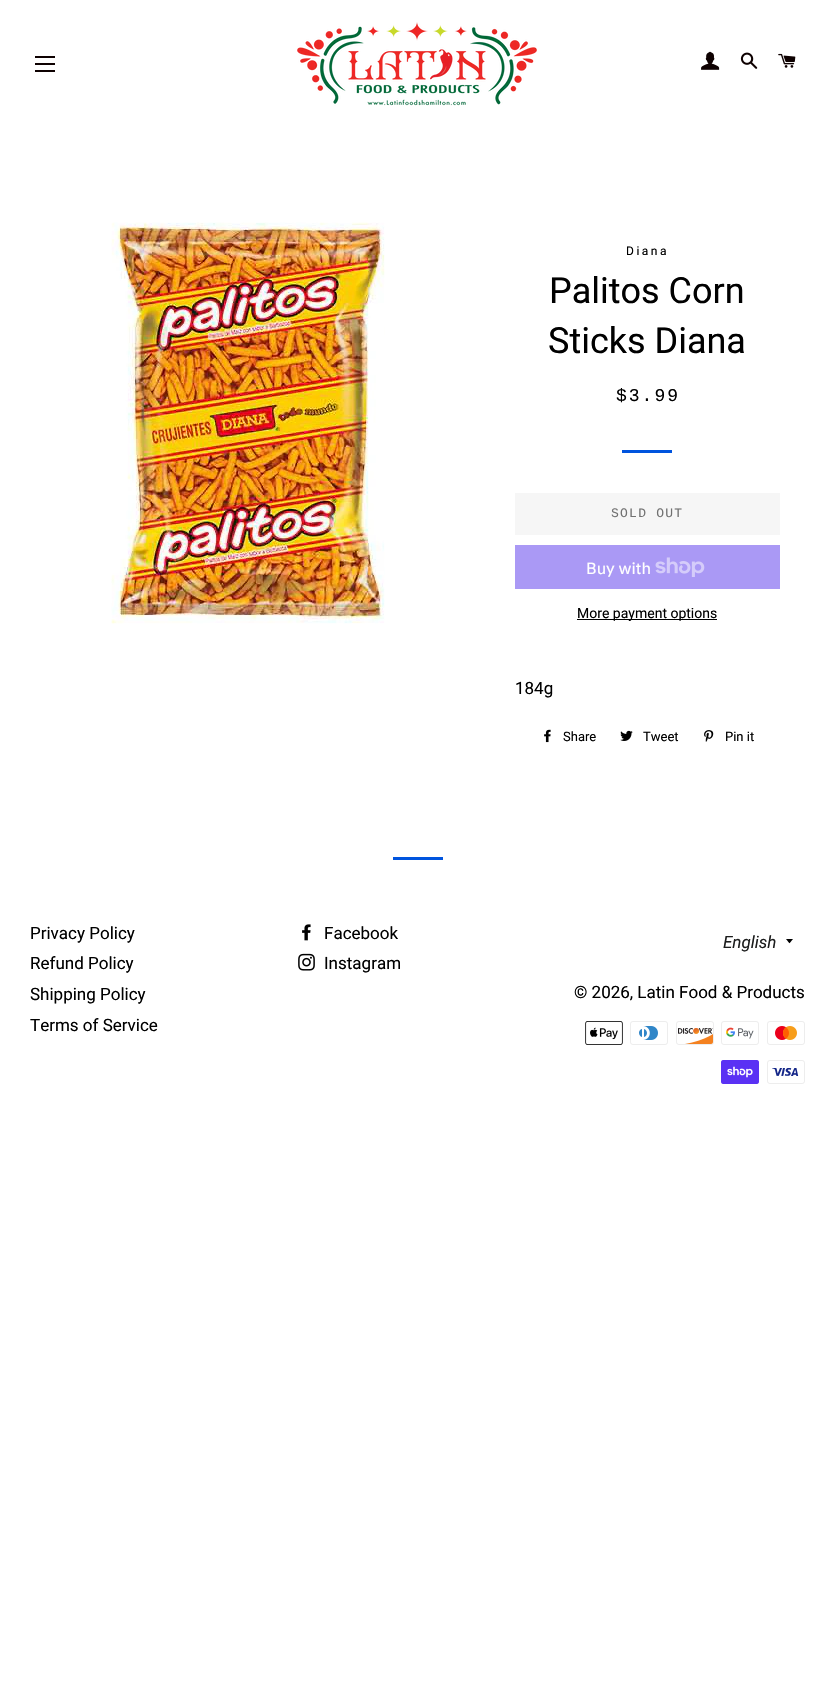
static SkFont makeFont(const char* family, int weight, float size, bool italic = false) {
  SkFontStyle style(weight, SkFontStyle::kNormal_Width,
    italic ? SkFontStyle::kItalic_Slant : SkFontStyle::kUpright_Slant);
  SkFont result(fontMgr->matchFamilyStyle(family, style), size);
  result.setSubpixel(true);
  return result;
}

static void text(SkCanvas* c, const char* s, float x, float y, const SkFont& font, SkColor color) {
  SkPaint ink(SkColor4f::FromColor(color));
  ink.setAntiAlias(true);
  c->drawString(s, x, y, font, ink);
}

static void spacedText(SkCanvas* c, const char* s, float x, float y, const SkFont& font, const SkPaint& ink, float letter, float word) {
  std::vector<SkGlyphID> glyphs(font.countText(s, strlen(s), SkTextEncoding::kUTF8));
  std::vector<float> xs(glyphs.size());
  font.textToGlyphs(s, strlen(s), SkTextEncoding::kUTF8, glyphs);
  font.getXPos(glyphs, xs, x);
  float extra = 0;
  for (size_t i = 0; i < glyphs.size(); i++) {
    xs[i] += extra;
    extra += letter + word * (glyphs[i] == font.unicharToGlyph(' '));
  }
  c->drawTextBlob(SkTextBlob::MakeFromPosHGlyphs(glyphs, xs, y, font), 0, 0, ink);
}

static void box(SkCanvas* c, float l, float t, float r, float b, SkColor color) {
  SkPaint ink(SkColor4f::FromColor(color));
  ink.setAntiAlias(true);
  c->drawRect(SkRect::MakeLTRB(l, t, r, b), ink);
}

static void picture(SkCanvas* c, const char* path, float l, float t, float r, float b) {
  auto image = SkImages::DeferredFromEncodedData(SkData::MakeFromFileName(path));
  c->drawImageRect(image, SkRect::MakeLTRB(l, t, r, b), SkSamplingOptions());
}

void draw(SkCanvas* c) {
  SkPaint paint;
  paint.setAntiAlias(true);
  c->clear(0xffffffff);
  box(c, 35, 56, 55, 58, 0xff0e0101);
  box(c, 35, 63, 55, 65, 0xff0e0101);
  box(c, 35, 70, 55, 72, 0xff0e0101);
  picture(c, "img_01.png", 297, 22, 537, 106);
  picture(c, "img_02.png", 701, 51, 720, 70);
  picture(c, "img_03.png", 740, 52, 758, 69);
  picture(c, "img_04.png", 778, 53, 796, 68);
  picture(c, "img_05.png", 111, 222, 385, 624);
  SkFont face1 = makeFont("Roboto", 400, 12);
  paint.setColor(0xff000000);
  spacedText(c, "Diana", 626, 255, face1, paint, 2.5f, 0);
  SkFont face2 = makeFont("Roboto", 400, 36);
  text(c, "Palitos Corn", 549, 303, face2, 0xff000000);
  text(c, "Sticks Diana", 548, 353, face2, 0xff000000);
  SkFont face3 = makeFont("Liberation Mono", 400, 18);
  spacedText(c, "$3.99", 616, 401, face3, paint, 2, 0);
  box(c, 622, 450, 672, 453, 0xff0054de);
  box(c, 515, 493, 780, 535, 0xfff6f6f6);
  SkFont face4 = makeFont("Liberation Mono", 400, 13);
  paint.setColor(0xff717171);
  spacedText(c, "SOLD OUT", 611, 517, face4, paint, 1.25f, 0);
  box(c, 515, 545, 780, 589, 0xffaa99f5);
  SkFont face5 = makeFont("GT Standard", 400, 16);
  text(c, "Buy with", 586, 574, face5, 0xffffffff);
  picture(c, "img_06.png", 655, 557, 705, 577);
  box(c, 577, 619, 717, 620, 0xff000000);
  SkFont face6 = makeFont("Roboto", 400, 14);
  text(c, "More payment options", 577, 618, face6, 0xff000000);
  SkFont face7 = makeFont("Roboto", 400, 17);
  text(c, "184g", 515, 694, face7, 0xff000000);
  picture(c, "img_07.png", 544, 729, 551, 743);
  SkFont face8 = makeFont("Roboto", 400, 13);
  text(c, "Share", 563, 741, face8, 0xff000000);
  picture(c, "img_08.png", 620, 730, 633, 741);
  text(c, "Tweet", 643, 741, face8, 0xff000000);
  picture(c, "img_09.png", 704, 730, 714, 742);
  text(c, "Pin it", 725, 741, face8, 0xff000000);
  box(c, 393, 857, 443, 860, 0xff0054de);
  text(c, "Privacy Policy", 30, 939, face7, 0xff000000);
  text(c, "Refund Policy", 30, 969, face7, 0xff000000);
  text(c, "Shipping Policy", 30, 1000, face7, 0xff000000);
  text(c, "Terms of Service", 30, 1031, face7, 0xff000000);
  picture(c, "img_10.png", 302, 924, 311, 941);
  text(c, "Facebook", 324, 939, face7, 0xff000000);
  picture(c, "img_11.png", 298, 953, 315, 971);
  text(c, "Instagram", 324, 969, face7, 0xff000000);
  paint.setColor(0xff000000);
  c->drawPath(SkPathBuilder().moveTo(786, 939).cubicTo(790.5f, 944.5f, 788.5f, 944.5f, 793, 939).close().detach(), paint);
  SkFont face9 = makeFont("Roboto", 400, 17, true);
  text(c, "English", 723, 948, face9, 0xff1c1d1d);
  text(c, "© 2026, Latin Food & Products", 574, 998, face7, 0xff000000);
  picture(c, "img_12.png", 585, 1021, 623, 1045);
  picture(c, "img_13.png", 630, 1021, 668, 1045);
  picture(c, "img_14.png", 676, 1021, 714, 1045);
  picture(c, "img_15.png", 721, 1021, 759, 1045);
  picture(c, "img_16.png", 767, 1021, 805, 1045);
  picture(c, "img_17.png", 721, 1060, 759, 1084);
  picture(c, "img_18.png", 767, 1060, 805, 1084);
}
